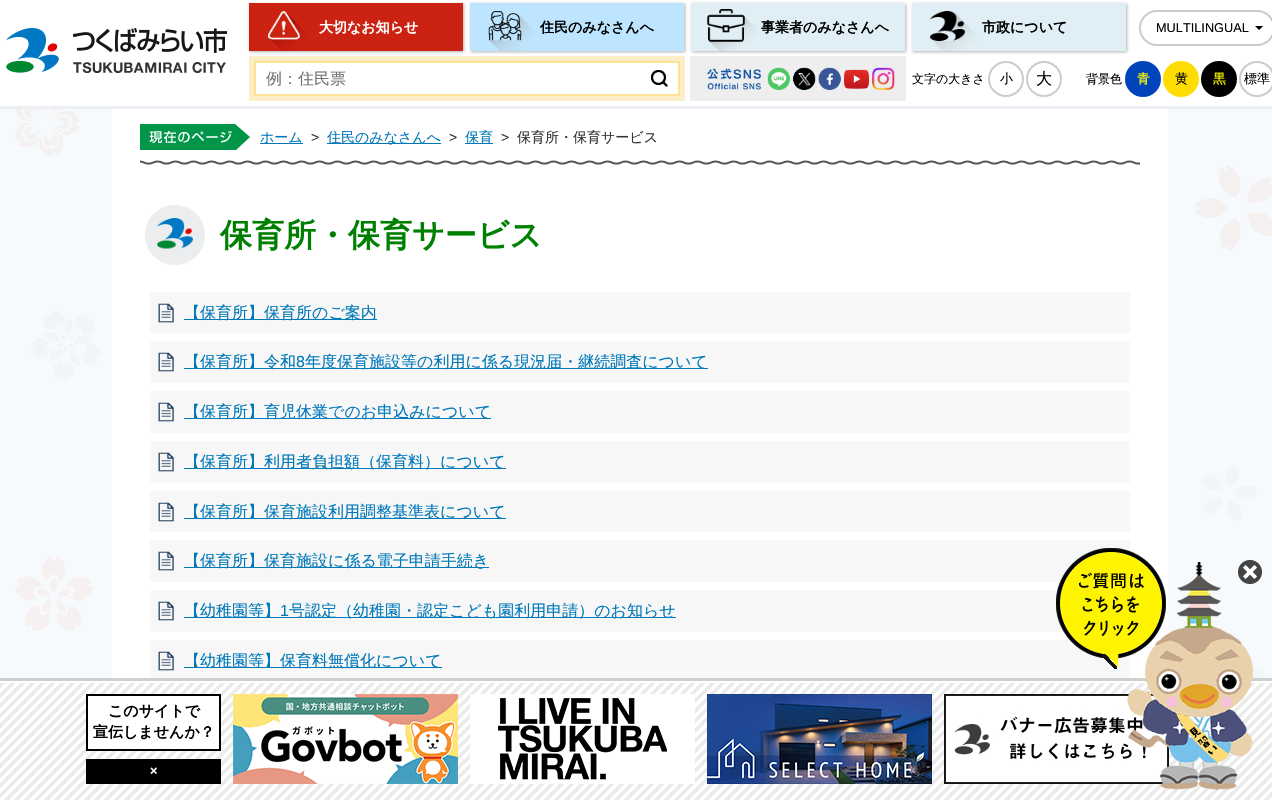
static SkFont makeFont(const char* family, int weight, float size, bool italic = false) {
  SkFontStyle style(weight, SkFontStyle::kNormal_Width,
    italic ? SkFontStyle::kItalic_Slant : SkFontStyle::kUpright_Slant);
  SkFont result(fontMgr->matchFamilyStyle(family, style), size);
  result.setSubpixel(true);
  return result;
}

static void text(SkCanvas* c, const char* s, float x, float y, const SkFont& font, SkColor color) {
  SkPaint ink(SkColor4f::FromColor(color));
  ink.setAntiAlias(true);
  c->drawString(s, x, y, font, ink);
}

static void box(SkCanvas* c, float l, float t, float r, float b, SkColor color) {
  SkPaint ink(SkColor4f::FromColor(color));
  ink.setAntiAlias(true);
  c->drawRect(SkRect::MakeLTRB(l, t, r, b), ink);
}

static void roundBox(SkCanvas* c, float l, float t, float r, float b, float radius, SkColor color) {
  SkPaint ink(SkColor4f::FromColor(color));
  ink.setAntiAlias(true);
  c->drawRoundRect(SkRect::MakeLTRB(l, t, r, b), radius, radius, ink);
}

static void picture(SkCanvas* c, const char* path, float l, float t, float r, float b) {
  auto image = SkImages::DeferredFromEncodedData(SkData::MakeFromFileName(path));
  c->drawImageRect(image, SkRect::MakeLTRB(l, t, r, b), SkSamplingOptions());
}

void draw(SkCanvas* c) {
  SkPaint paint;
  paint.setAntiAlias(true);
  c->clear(0xfff6fafc);
  picture(c, "img_01.png", 15, 109, 1272, 678);
  box(c, 0, 0, 1272, 106, 0xffffffff);
  box(c, 0, 106, 1272, 109, 0xffeceff3);
  picture(c, "img_02.png", 5, 28, 227, 73);
  paint.setColor(0x4d000000);
  paint.setMaskFilter(SkMaskFilter::MakeBlur(kNormal_SkBlurStyle, 1.5f));
  c->drawRect(SkRect::MakeLTRB(250, 4, 464, 52), paint);
  paint.setMaskFilter(nullptr);
  box(c, 249, 3, 463, 51, 0xffcc2211);
  picture(c, "img_03.png", 268, 11, 309, 51);
  SkFont face1 = makeFont("WenQuanYi Zen Hei", 700, 14);
  text(c, "大切なお知らせ", 319, 32, face1, 0xffffffff);
  paint.setMaskFilter(SkMaskFilter::MakeBlur(kNormal_SkBlurStyle, 1.5f));
  c->drawRect(SkRect::MakeLTRB(471, 4, 685, 52), paint);
  paint.setMaskFilter(nullptr);
  box(c, 470, 3, 684, 51, 0xffbde5ff);
  picture(c, "img_04.png", 488, 11, 536, 51);
  text(c, "住民のみなさんへ", 540, 32, face1, 0xff000000);
  paint.setMaskFilter(SkMaskFilter::MakeBlur(kNormal_SkBlurStyle, 1.5f));
  c->drawRect(SkRect::MakeLTRB(692, 4, 906, 52), paint);
  paint.setMaskFilter(nullptr);
  box(c, 691, 3, 905, 51, 0xffe0eff5);
  picture(c, "img_05.png", 707, 9, 757, 51);
  text(c, "事業者のみなさんへ", 761, 32, face1, 0xff000000);
  paint.setMaskFilter(SkMaskFilter::MakeBlur(kNormal_SkBlurStyle, 1.5f));
  c->drawRect(SkRect::MakeLTRB(913, 4, 1127, 52), paint);
  paint.setMaskFilter(nullptr);
  box(c, 912, 3, 1126, 51, 0xffe0eff5);
  picture(c, "img_06.png", 929, 11, 977, 51);
  text(c, "市政について", 982, 32, face1, 0xff000000);
  picture(c, "img_07.png", 1255, 26, 1263, 30);
  paint.setStyle(SkPaint::kStroke_Style);
  paint.setStrokeWidth(2);
  paint.setColor(0xffcccccc);
  c->drawRoundRect(SkRect::MakeLTRB(1140, 11, 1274, 45), 17, 17, paint);
  SkFont face2 = makeFont("Liberation Sans", 400, 12.75f);
  text(c, "MULTILINGUAL", 1156, 32, face2, 0xff000000);
  box(c, 249, 56, 685, 101, 0xfffcefc8);
  paint.setStyle(SkPaint::kFill_Style);
  paint.setColor(0xffffffff);
  c->drawRect(SkRect::MakeLTRB(255, 62, 679, 95), paint);
  paint.setStyle(SkPaint::kStroke_Style);
  paint.setColor(0xfffce292);
  c->drawRect(SkRect::MakeLTRB(255, 62, 679, 95), paint);
  SkFont face3 = makeFont("WenQuanYi Zen Hei", 500, 16);
  text(c, "例：住民票", 266, 84, face3, 0xff757575);
  picture(c, "img_08.png", 651, 70, 668, 87);
  box(c, 690, 56, 906, 101, 0xffeeeeee);
  picture(c, "img_09.png", 707, 67, 895, 90);
  SkFont face4 = makeFont("WenQuanYi Zen Hei", 500, 12);
  text(c, "文字の大きさ", 912, 83, face4, 0xff000000);
  paint.setColor(0xffcccccc);
  c->drawCircle(1006, 79, 17, paint);
  SkFont face5 = makeFont("WenQuanYi Zen Hei", 500, 13);
  text(c, "小", 1000, 83, face5, 0xff000000);
  c->drawCircle(1044, 79, 17, paint);
  text(c, "大", 1036, 84, face3, 0xff000000);
  text(c, "背景色", 1086, 83, face4, 0xff000000);
  paint.setStyle(SkPaint::kFill_Style);
  paint.setColor(0xff0044bb);
  c->drawCircle(1143, 79, 18, paint);
  text(c, "青", 1137, 83, face5, 0xffffff00);
  paint.setColor(0xffffdd00);
  c->drawCircle(1181, 79, 18, paint);
  text(c, "黄", 1175, 83, face5, 0xff000000);
  paint.setColor(0xff000000);
  c->drawCircle(1219, 79, 18, paint);
  text(c, "黒", 1213, 83, face5, 0xffffff00);
  paint.setStyle(SkPaint::kStroke_Style);
  paint.setColor(0xffcccccc);
  c->drawCircle(1257, 79, 17, paint);
  text(c, "標準", 1244, 83, face5, 0xff000000);
  picture(c, "img_10.png", 140, 160, 1140, 165);
  picture(c, "img_11.png", 140, 124, 250, 150);
  box(c, 260, 143, 303, 144, 0xff0079ba);
  SkFont face6 = makeFont("WenQuanYi Zen Hei", 500, 14);
  text(c, "ホーム", 260, 142, face6, 0xff0079ba);
  SkFont face7 = makeFont("Liberation Sans", 400, 14);
  text(c, ">", 311, 142, face7, 0xff333333);
  box(c, 327, 143, 441, 144, 0xff0079ba);
  text(c, "住民のみなさんへ", 327, 142, face6, 0xff0079ba);
  text(c, ">", 449, 142, face7, 0xff333333);
  box(c, 465, 143, 493, 144, 0xff0079ba);
  text(c, "保育", 465, 142, face6, 0xff0079ba);
  text(c, ">", 501, 142, face7, 0xff333333);
  text(c, "保育所・保育サービス", 517, 142, face6, 0xff333333);
  picture(c, "img_12.png", 145, 205, 205, 265);
  SkFont face8 = makeFont("WenQuanYi Zen Hei", 700, 32);
  text(c, "保育所・保育サービス", 220, 246, face8, 0xff008000);
  roundBox(c, 150, 292, 1130, 333, 3, 0xfff7f7f7);
  picture(c, "img_13.png", 158, 303, 174, 323);
  box(c, 184, 319, 377, 320, 0xff0079ba);
  text(c, "【保育所】保育所のご案内", 184, 318, face3, 0xff0079ba);
  roundBox(c, 150, 341, 1130, 383, 3, 0xfff7f7f7);
  picture(c, "img_13.png", 158, 352, 174, 372);
  box(c, 184, 368, 708, 369, 0xff0079ba);
  text(c, "【保育所】令和", 184, 367, face3, 0xff0079ba);
  SkFont face9 = makeFont("Liberation Sans", 400, 16);
  text(c, "8", 296, 367, face9, 0xff0079ba);
  text(c, "年度保育施設等の利用に係る現況届・継続調査について", 305, 367, face3, 0xff0079ba);
  roundBox(c, 150, 391, 1130, 433, 3, 0xfff7f7f7);
  picture(c, "img_13.png", 158, 402, 174, 422);
  box(c, 184, 418, 491, 419, 0xff0079ba);
  text(c, "【保育所】育児休業でのお申込みについて", 184, 417, face3, 0xff0079ba);
  roundBox(c, 150, 441, 1130, 483, 3, 0xfff7f7f7);
  picture(c, "img_13.png", 158, 452, 174, 472);
  box(c, 184, 468, 506, 469, 0xff0079ba);
  text(c, "【保育所】利用者負担額（保育料）について", 184, 467, face3, 0xff0079ba);
  roundBox(c, 150, 491, 1130, 532, 3, 0xfff7f7f7);
  picture(c, "img_13.png", 158, 502, 174, 522);
  box(c, 184, 518, 506, 519, 0xff0079ba);
  text(c, "【保育所】保育施設利用調整基準表について", 184, 517, face3, 0xff0079ba);
  roundBox(c, 150, 540, 1130, 582, 3, 0xfff7f7f7);
  picture(c, "img_13.png", 158, 551, 174, 571);
  box(c, 184, 567, 489, 568, 0xff0079ba);
  text(c, "【保育所】保育施設に係る電子申請手続き", 184, 566, face3, 0xff0079ba);
  roundBox(c, 150, 590, 1130, 632, 3, 0xfff7f7f7);
  picture(c, "img_13.png", 158, 601, 174, 621);
  box(c, 184, 617, 676, 618, 0xff0079ba);
  text(c, "【幼稚園等】", 184, 616, face3, 0xff0079ba);
  text(c, "1", 280, 616, face9, 0xff0079ba);
  text(c, "号認定（幼稚園・認定こども園利用申請）のお知らせ", 289, 616, face3, 0xff0079ba);
  roundBox(c, 150, 640, 1130, 731, 3, 0xfff7f7f7);
  picture(c, "img_13.png", 158, 651, 174, 671);
  box(c, 184, 667, 442, 668, 0xff0079ba);
  text(c, "【幼稚園等】保育料無償化について", 184, 666, face3, 0xff0079ba);
  picture(c, "img_14.png", 0, 678, 1272, 800);
  paint.setStyle(SkPaint::kFill_Style);
  paint.setColor(0xffffffff);
  c->drawRect(SkRect::MakeLTRB(87, 695, 220, 750), paint);
  paint.setStyle(SkPaint::kStroke_Style);
  paint.setColor(0xff000000);
  c->drawRect(SkRect::MakeLTRB(87, 695, 220, 750), paint);
  SkFont face10 = makeFont("WenQuanYi Zen Hei", 700, 15);
  text(c, "このサイトで", 108, 716, face10, 0xff000000);
  text(c, "宣伝しませんか？", 93, 737, face10, 0xff000000);
  picture(c, "img_15.png", 233, 694, 458, 784);
  picture(c, "img_16.png", 470, 694, 695, 784);
  picture(c, "img_17.png", 707, 694, 932, 784);
  picture(c, "img_18.png", 944, 694, 1169, 784);
  box(c, 86, 759, 221, 784, 0xff000000);
  SkFont face11 = makeFont("Liberation Sans", 700, 12.75f);
  text(c, "×", 150, 775, face11, 0xffffffff);
  picture(c, "img_19.png", 1056, 548, 1254, 790);
  picture(c, "img_20.png", 1238, 560, 1262, 584);
}
